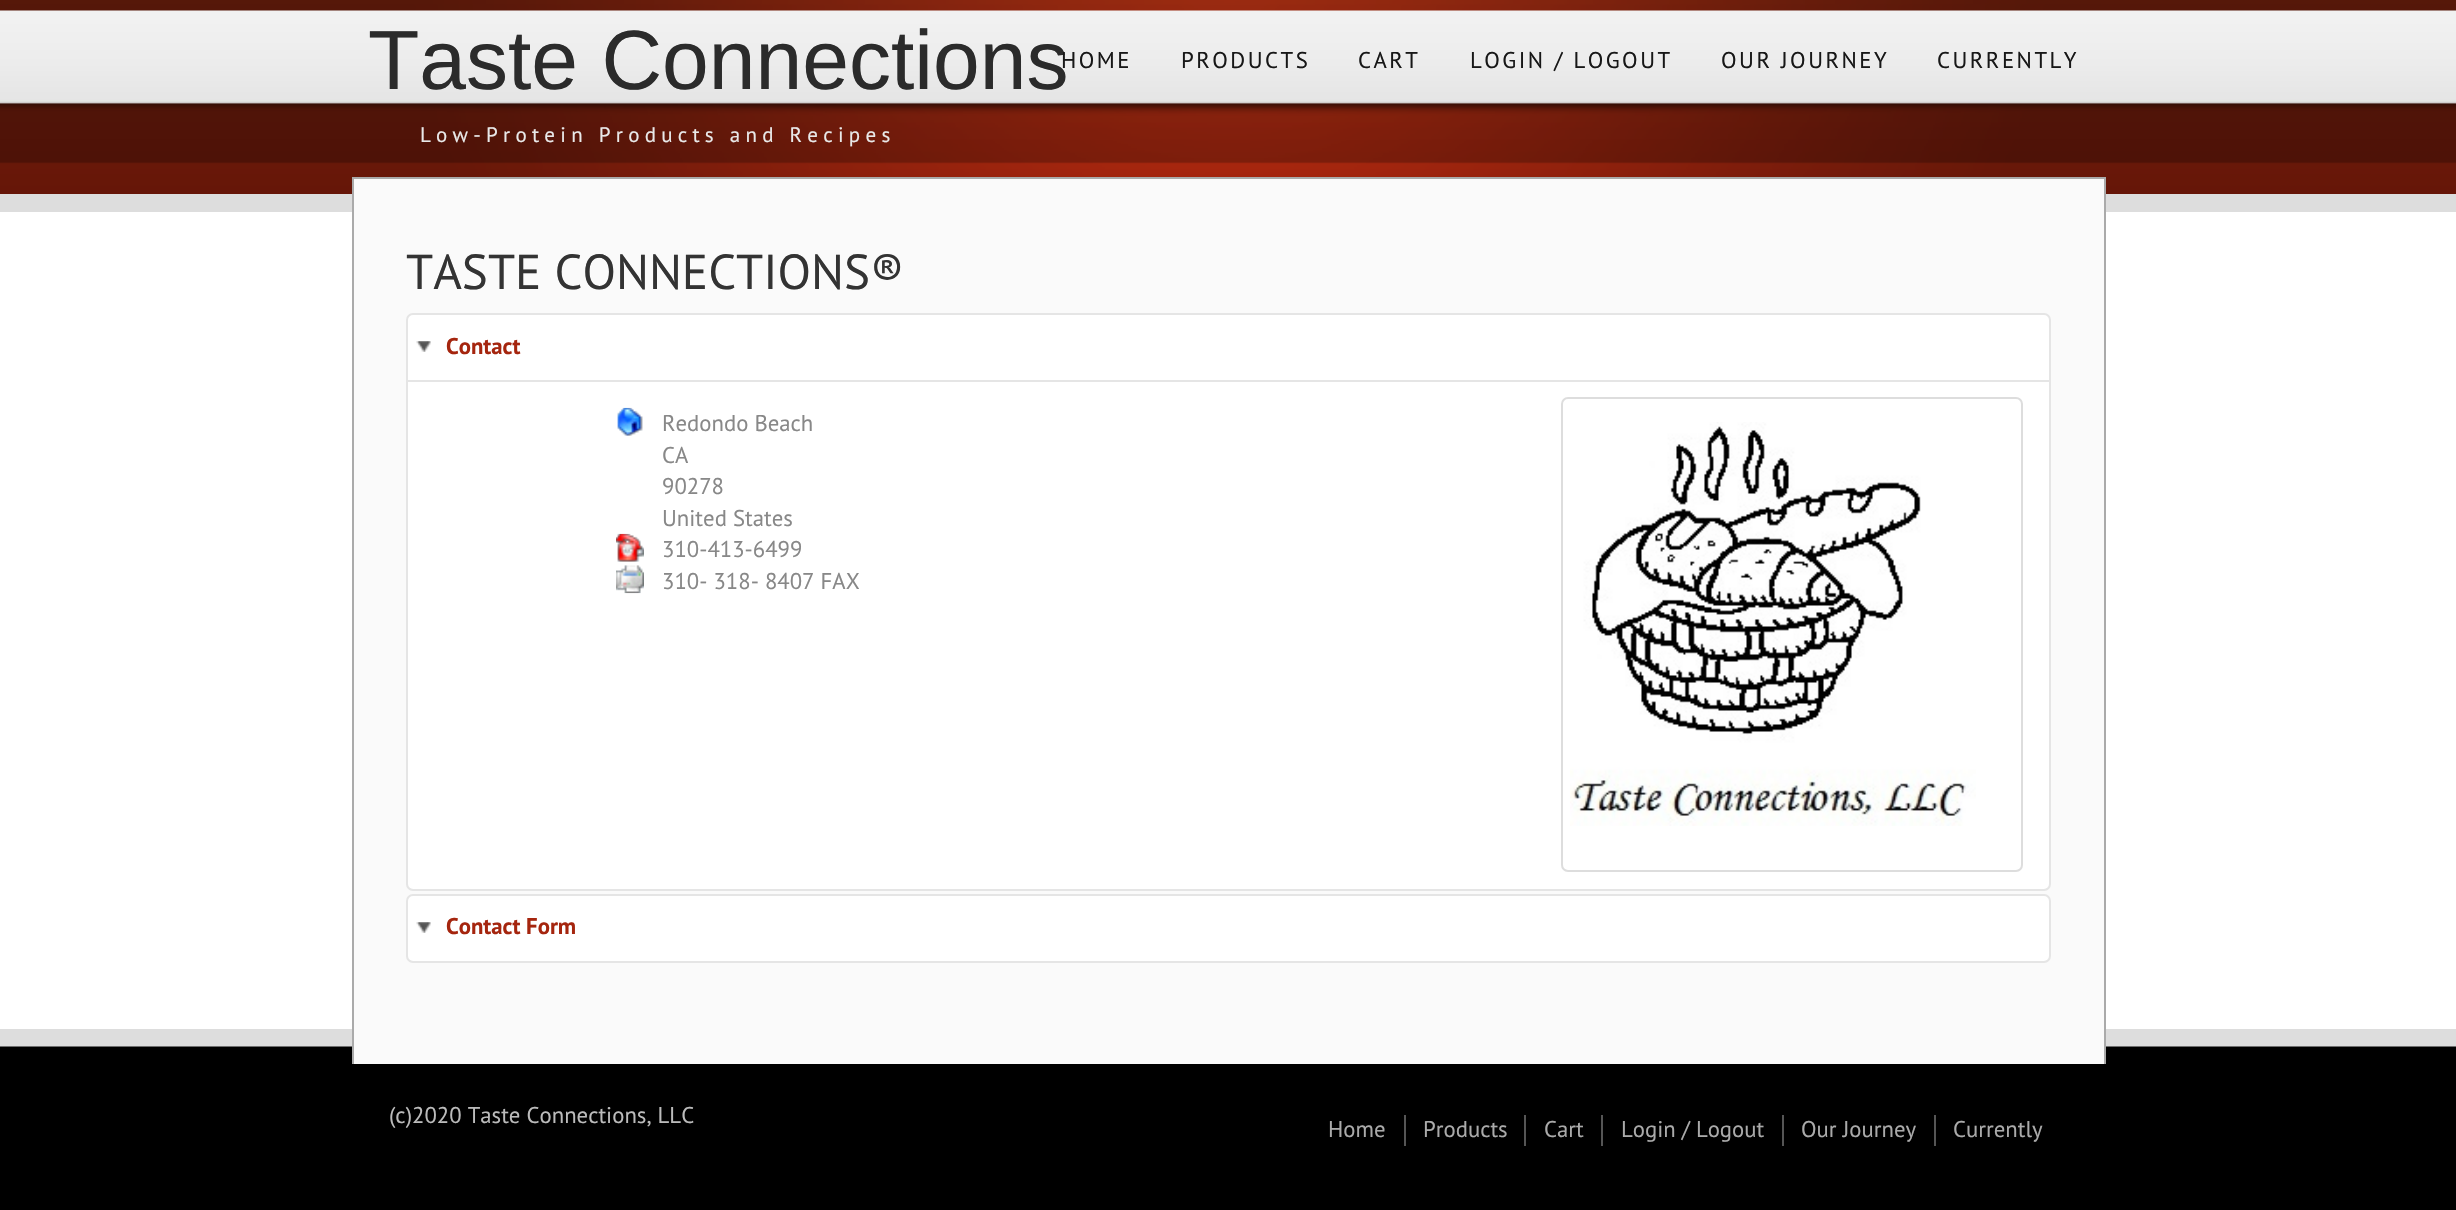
static SkFont makeFont(const char* family, int weight, float size, bool italic = false) {
  SkFontStyle style(weight, SkFontStyle::kNormal_Width,
    italic ? SkFontStyle::kItalic_Slant : SkFontStyle::kUpright_Slant);
  SkFont result(fontMgr->matchFamilyStyle(family, style), size);
  result.setSubpixel(true);
  return result;
}

static void text(SkCanvas* c, const char* s, float x, float y, const SkFont& font, SkColor color) {
  SkPaint ink(SkColor4f::FromColor(color));
  ink.setAntiAlias(true);
  c->drawString(s, x, y, font, ink);
}

static void spacedText(SkCanvas* c, const char* s, float x, float y, const SkFont& font, const SkPaint& ink, float letter, float word) {
  std::vector<SkGlyphID> glyphs(font.countText(s, strlen(s), SkTextEncoding::kUTF8));
  std::vector<float> xs(glyphs.size());
  font.textToGlyphs(s, strlen(s), SkTextEncoding::kUTF8, glyphs);
  font.getXPos(glyphs, xs, x);
  float extra = 0;
  for (size_t i = 0; i < glyphs.size(); i++) {
    xs[i] += extra;
    extra += letter + word * (glyphs[i] == font.unicharToGlyph(' '));
  }
  c->drawTextBlob(SkTextBlob::MakeFromPosHGlyphs(glyphs, xs, y, font), 0, 0, ink);
}

static void box(SkCanvas* c, float l, float t, float r, float b, SkColor color) {
  SkPaint ink(SkColor4f::FromColor(color));
  ink.setAntiAlias(true);
  c->drawRect(SkRect::MakeLTRB(l, t, r, b), ink);
}

static void picture(SkCanvas* c, const char* path, float l, float t, float r, float b) {
  auto image = SkImages::DeferredFromEncodedData(SkData::MakeFromFileName(path));
  c->drawImageRect(image, SkRect::MakeLTRB(l, t, r, b), SkSamplingOptions());
}

void draw(SkCanvas* c) {
  SkPaint paint;
  paint.setAntiAlias(true);
  c->clear(0xffffffff);
  picture(c, "img_01.png", 0, 0, 2456, 194);
  box(c, 0, 194, 2456, 212, 0xffdddddd);
  picture(c, "img_02.png", 0, 0, 2456, 164);
  SkFont face1 = makeFont("Liberation Sans", 400, 84);
  text(c, "Taste Connections", 368, 89, face1, 0xff2b2b2b);
  SkFont face2 = makeFont("PT Sans", 400, 21);
  paint.setColor(0xffe9e9e9);
  spacedText(c, "Low-Protein Products and Recipes", 420, 142, face2, paint, 5.25f, 0);
  SkFont face3 = makeFont("PT Sans", 400, 22.75f);
  paint.setColor(0xff171717);
  spacedText(c, "HOME", 1061, 68, face3, paint, 2.5f, 0);
  spacedText(c, "PRODUCTS", 1181, 68, face3, paint, 2.5f, 0);
  spacedText(c, "CART", 1358, 68, face3, paint, 2.5f, 0);
  spacedText(c, "LOGIN / LOGOUT", 1470, 68, face3, paint, 2.5f, 0);
  spacedText(c, "OUR JOURNEY", 1721, 68, face3, paint, 2.5f, 0);
  spacedText(c, "CURRENTLY", 1937, 68, face3, paint, 2.5f, 0);
  box(c, 354, 179, 2104, 1029, 0xfffafafa);
  box(c, 352, 177, 2105, 179, 0xffaaaaaa);
  box(c, 2104, 177, 2106, 1029, 0xffaaaaaa);
  box(c, 352, 177, 354, 1029, 0xffaaaaaa);
  SkFont face4 = makeFont("PT Sans", 400, 49);
  text(c, "TASTE CONNECTIONS®", 406, 289, face4, 0xff333333);
  paint.setColor(0xffffffff);
  c->drawRoundRect(SkRect::MakeLTRB(407, 314, 2050, 890), 6, 6, paint);
  paint.setStyle(SkPaint::kStroke_Style);
  paint.setStrokeWidth(2);
  paint.setColor(0xffe5e5e5);
  c->drawRoundRect(SkRect::MakeLTRB(407, 314, 2050, 890), 6, 6, paint);
  picture(c, "img_03.png", 416, 341, 431, 352);
  SkFont face5 = makeFont("PT Sans", 700, 22.75f);
  text(c, "Contact", 446, 354, face5, 0xffa5250e);
  box(c, 408, 380, 2049, 382, 0xffe5e5e5);
  picture(c, "img_04.png", 617, 407, 643, 436);
  text(c, "Redondo Beach", 662, 431, face3, 0xff888888);
  text(c, "CA", 662, 463, face3, 0xff888888);
  text(c, "90278", 662, 494, face3, 0xff888888);
  text(c, "United States", 662, 526, face3, 0xff888888);
  picture(c, "img_05.png", 616, 533, 644, 562);
  text(c, "310-413-6499", 662, 557, face3, 0xff888888);
  picture(c, "img_06.png", 616, 565, 644, 594);
  text(c, "310- 318- 8407 FAX", 662, 589, face3, 0xff888888);
  paint.setColor(0xffdddddd);
  c->drawRoundRect(SkRect::MakeLTRB(1562, 398, 2022, 871), 6, 6, paint);
  picture(c, "img_07.png", 1570, 422, 1976, 826);
  paint.setStyle(SkPaint::kFill_Style);
  paint.setColor(0xffffffff);
  c->drawRoundRect(SkRect::MakeLTRB(407, 895, 2050, 962), 6, 6, paint);
  paint.setStyle(SkPaint::kStroke_Style);
  paint.setColor(0xffe5e5e5);
  c->drawRoundRect(SkRect::MakeLTRB(407, 895, 2050, 962), 6, 6, paint);
  picture(c, "img_03.png", 416, 922, 431, 933);
  text(c, "Contact Form", 446, 934, face5, 0xffa5250e);
  picture(c, "img_08.png", 0, 1029, 2456, 1064);
  box(c, 354, 1029, 2104, 1064, 0xfffafafa);
  box(c, 2104, 1029, 2106, 1066, 0xffaaaaaa);
  box(c, 352, 1029, 354, 1066, 0xffaaaaaa);
  box(c, 0, 1064, 2456, 1210, 0xff000000);
  text(c, "(c)2020 Taste Connections, LLC", 389, 1123, face3, 0xffbbbbbb);
  box(c, 1404, 1115, 1406, 1146, 0xff555555);
  text(c, "Home", 1328, 1137, face3, 0xffaaaaaa);
  box(c, 1524, 1115, 1526, 1146, 0xff555555);
  text(c, "Products", 1423, 1137, face3, 0xffaaaaaa);
  box(c, 1601, 1115, 1603, 1146, 0xff555555);
  text(c, "Cart", 1544, 1137, face3, 0xffaaaaaa);
  box(c, 1782, 1115, 1784, 1146, 0xff555555);
  text(c, "Login / Logout", 1621, 1137, face3, 0xffaaaaaa);
  box(c, 1934, 1115, 1936, 1146, 0xff555555);
  text(c, "Our Journey", 1801, 1137, face3, 0xffaaaaaa);
  text(c, "Currently", 1953, 1137, face3, 0xffaaaaaa);
}
